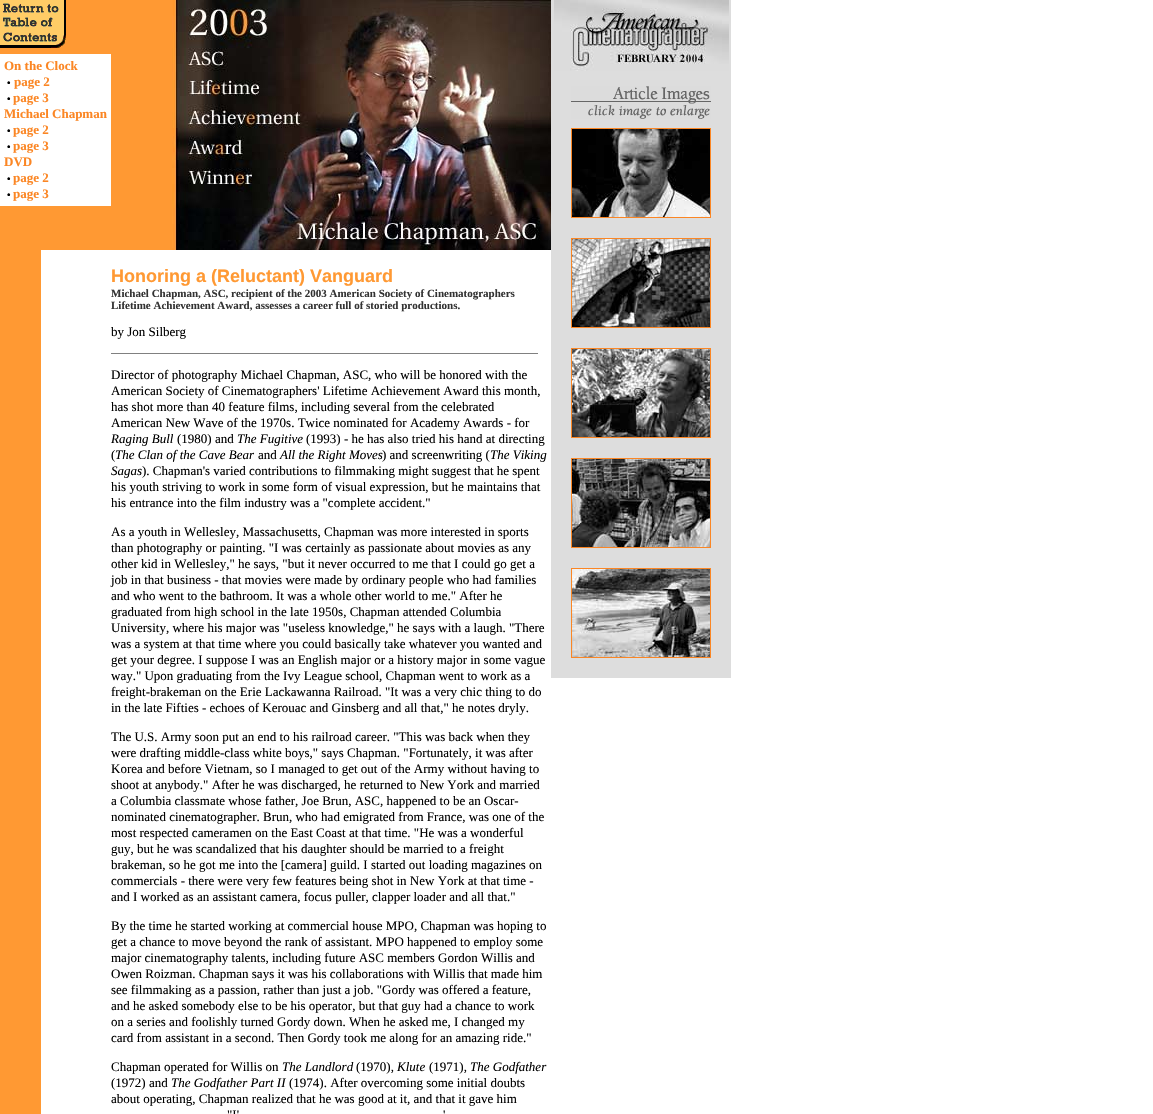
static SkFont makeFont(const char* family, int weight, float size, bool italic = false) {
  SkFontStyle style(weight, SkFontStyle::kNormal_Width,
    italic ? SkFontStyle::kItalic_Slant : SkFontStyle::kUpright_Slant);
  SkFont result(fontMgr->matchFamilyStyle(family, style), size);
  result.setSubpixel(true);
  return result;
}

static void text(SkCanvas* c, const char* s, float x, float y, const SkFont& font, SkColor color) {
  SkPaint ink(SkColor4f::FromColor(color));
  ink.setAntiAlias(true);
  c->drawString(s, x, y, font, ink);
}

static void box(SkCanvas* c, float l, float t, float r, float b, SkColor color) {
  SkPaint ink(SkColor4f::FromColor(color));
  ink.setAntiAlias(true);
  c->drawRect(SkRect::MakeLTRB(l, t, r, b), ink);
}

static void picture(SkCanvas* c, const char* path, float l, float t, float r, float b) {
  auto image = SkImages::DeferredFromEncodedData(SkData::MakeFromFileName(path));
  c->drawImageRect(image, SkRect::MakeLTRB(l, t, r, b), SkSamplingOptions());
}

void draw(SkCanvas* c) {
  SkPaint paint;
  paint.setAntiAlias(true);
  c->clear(0xffffffff);
  box(c, 0, 250, 41, 1114, 0xffff9933);
  box(c, 0, 0, 172, 250, 0xffff9933);
  picture(c, "img_01.png", 0, 0, 66, 48);
  box(c, 0, 54, 111, 206, 0xffffffff);
  SkFont face1 = makeFont("Liberation Serif", 700, 13);
  text(c, "On the Clock", 4, 70, face1, 0xfffb8624);
  SkFont face2 = makeFont("Liberation Sans", 400, 10);
  text(c, "•", 7, 86, face2, 0xff000000);
  text(c, "page 2", 14, 86, face1, 0xfffb8624);
  text(c, "•", 7, 102, face2, 0xff000000);
  text(c, "page 3", 13, 102, face1, 0xfffb8624);
  text(c, "Michael Chapman", 4, 118, face1, 0xfffb8624);
  text(c, "•", 7, 134, face2, 0xff000000);
  text(c, "page 2", 13, 134, face1, 0xfffb8624);
  text(c, "•", 7, 150, face2, 0xff000000);
  text(c, "page 3", 13, 150, face1, 0xfffb8624);
  text(c, "DVD", 4, 166, face1, 0xfffb8624);
  text(c, "•", 7, 182, face2, 0xff000000);
  text(c, "page 2", 13, 182, face1, 0xfffb8624);
  text(c, "•", 7, 198, face2, 0xff000000);
  text(c, "page 3", 13, 198, face1, 0xfffb8624);
  picture(c, "img_02.png", 172, 0, 551, 250);
  box(c, 551, 0, 731, 678, 0xffdddddd);
  picture(c, "img_03.png", 554, 0, 729, 71);
  picture(c, "img_04.png", 571, 86, 711, 119);
  paint.setStyle(SkPaint::kStroke_Style);
  paint.setStrokeWidth(1);
  paint.setColor(0xfffb8624);
  c->drawRect(SkRect::MakeLTRB(571.5f, 128.5f, 710.5f, 217.5f), paint);
  picture(c, "img_05.png", 572, 129, 710, 217);
  c->drawRect(SkRect::MakeLTRB(571.5f, 238.5f, 710.5f, 327.5f), paint);
  picture(c, "img_06.png", 572, 239, 710, 327);
  c->drawRect(SkRect::MakeLTRB(571.5f, 348.5f, 710.5f, 437.5f), paint);
  picture(c, "img_07.png", 572, 349, 710, 437);
  c->drawRect(SkRect::MakeLTRB(571.5f, 458.5f, 710.5f, 547.5f), paint);
  picture(c, "img_08.png", 572, 459, 710, 547);
  c->drawRect(SkRect::MakeLTRB(571.5f, 568.5f, 710.5f, 657.5f), paint);
  picture(c, "img_09.png", 572, 569, 710, 657);
  SkFont face3 = makeFont("Liberation Sans", 700, 18);
  text(c, "Honoring a (Reluctant) Vanguard", 111, 282, face3, 0xffff9933);
  SkFont face4 = makeFont("Liberation Serif", 700, 11);
  text(c, "Michael Chapman, ASC, recipient of the 2003 American Society of Cinematographers", 111, 297, face4, 0xff333333);
  text(c, "Lifetime Achievement Award, assesses a career full of storied productions.", 111, 309, face4, 0xff333333);
  SkFont face5 = makeFont("Liberation Serif", 400, 13);
  text(c, "by Jon Silberg", 111, 336, face5, 0xff000000);
  box(c, 111, 353, 538, 354, 0xff808080);
  text(c, "Director of photography Michael Chapman, ASC, who will be honored with the", 111, 379, face5, 0xff000000);
  text(c, "American Society of Cinematographers' Lifetime Achievement Award this month,", 111, 395, face5, 0xff000000);
  text(c, "has shot more than 40 feature films, including several from the celebrated", 111, 411, face5, 0xff000000);
  text(c, "American New Wave of the 1970s. Twice nominated for Academy Awards - for", 111, 427, face5, 0xff000000);
  SkFont face6 = makeFont("Liberation Serif", 400, 13, true);
  text(c, "Raging Bull", 111, 443, face6, 0xff000000);
  text(c, "(1980) and", 177, 443, face5, 0xff000000);
  text(c, "The Fugitive", 237, 443, face6, 0xff000000);
  text(c, "(1993) - he has also tried his hand at directing", 306, 443, face5, 0xff000000);
  text(c, "(", 111, 459, face5, 0xff000000);
  text(c, "The Clan of the Cave Bear", 115, 459, face6, 0xff000000);
  text(c, "and", 258, 459, face5, 0xff000000);
  text(c, "All the Right Moves", 280, 459, face6, 0xff000000);
  text(c, ") and screenwriting (", 382, 459, face5, 0xff000000);
  text(c, "The Viking", 490, 459, face6, 0xff000000);
  text(c, "Sagas", 111, 475, face6, 0xff000000);
  text(c, "). Chapman's varied contributions to filmmaking might suggest that he spent", 142, 475, face5, 0xff000000);
  text(c, "his youth striving to work in some form of visual expression, but he maintains that", 111, 491, face5, 0xff000000);
  text(c, "his entrance into the film industry was a \"complete accident.\"", 111, 507, face5, 0xff000000);
  text(c, "As a youth in Wellesley, Massachusetts, Chapman was more interested in sports", 111, 536, face5, 0xff000000);
  text(c, "than photography or painting. \"I was certainly as passionate about movies as any", 111, 552, face5, 0xff000000);
  text(c, "other kid in Wellesley,\" he says, \"but it never occurred to me that I could go get a", 111, 568, face5, 0xff000000);
  text(c, "job in that business - that movies were made by ordinary people who had families", 111, 584, face5, 0xff000000);
  text(c, "and who went to the bathroom. It was a whole other world to me.\" After he", 111, 600, face5, 0xff000000);
  text(c, "graduated from high school in the late 1950s, Chapman attended Columbia", 111, 616, face5, 0xff000000);
  text(c, "University, where his major was \"useless knowledge,\" he says with a laugh. \"There", 111, 632, face5, 0xff000000);
  text(c, "was a system at that time where you could basically take whatever you wanted and", 111, 648, face5, 0xff000000);
  text(c, "get your degree. I suppose I was an English major or a history major in some vague", 111, 664, face5, 0xff000000);
  text(c, "way.\" Upon graduating from the Ivy League school, Chapman went to work as a", 111, 680, face5, 0xff000000);
  text(c, "freight-brakeman on the Erie Lackawanna Railroad. \"It was a very chic thing to do", 111, 696, face5, 0xff000000);
  text(c, "in the late Fifties - echoes of Kerouac and Ginsberg and all that,\" he notes dryly.", 111, 712, face5, 0xff000000);
  text(c, "The U.S. Army soon put an end to his railroad career. \"This was back when they", 111, 741, face5, 0xff000000);
  text(c, "were drafting middle-class white boys,\" says Chapman. \"Fortunately, it was after", 111, 757, face5, 0xff000000);
  text(c, "Korea and before Vietnam, so I managed to get out of the Army without having to", 111, 773, face5, 0xff000000);
  text(c, "shoot at anybody.\" After he was discharged, he returned to New York and married", 111, 789, face5, 0xff000000);
  text(c, "a Columbia classmate whose father, Joe Brun, ASC, happened to be an Oscar-", 111, 805, face5, 0xff000000);
  text(c, "nominated cinematographer. Brun, who had emigrated from France, was one of the", 111, 821, face5, 0xff000000);
  text(c, "most respected cameramen on the East Coast at that time. \"He was a wonderful", 111, 837, face5, 0xff000000);
  text(c, "guy, but he was scandalized that his daughter should be married to a freight", 111, 853, face5, 0xff000000);
  text(c, "brakeman, so he got me into the [camera] guild. I started out loading magazines on", 111, 869, face5, 0xff000000);
  text(c, "commercials - there were very few features being shot in New York at that time -", 111, 885, face5, 0xff000000);
  text(c, "and I worked as an assistant camera, focus puller, clapper loader and all that.\"", 111, 901, face5, 0xff000000);
  text(c, "By the time he started working at commercial house MPO, Chapman was hoping to", 111, 930, face5, 0xff000000);
  text(c, "get a chance to move beyond the rank of assistant. MPO happened to employ some", 111, 946, face5, 0xff000000);
  text(c, "major cinematography talents, including future ASC members Gordon Willis and", 111, 962, face5, 0xff000000);
  text(c, "Owen Roizman. Chapman says it was his collaborations with Willis that made him", 111, 978, face5, 0xff000000);
  text(c, "see filmmaking as a passion, rather than just a job. \"Gordy was offered a feature,", 111, 994, face5, 0xff000000);
  text(c, "and he asked somebody else to be his operator, but that guy had a chance to work", 111, 1010, face5, 0xff000000);
  text(c, "on a series and foolishly turned Gordy down. When he asked me, I changed my", 111, 1026, face5, 0xff000000);
  text(c, "card from assistant in a second. Then Gordy took me along for an amazing ride.\"", 111, 1042, face5, 0xff000000);
  text(c, "Chapman operated for Willis on", 111, 1071, face5, 0xff000000);
  text(c, "The Landlord", 282, 1071, face6, 0xff000000);
  text(c, "(1970),", 356, 1071, face5, 0xff000000);
  text(c, "Klute", 397, 1071, face6, 0xff000000);
  text(c, "(1971),", 429, 1071, face5, 0xff000000);
  text(c, "The Godfather", 470, 1071, face6, 0xff000000);
  text(c, "(1972) and", 111, 1087, face5, 0xff000000);
  text(c, "The Godfather Part II", 171, 1087, face6, 0xff000000);
  text(c, "(1974). After overcoming some initial doubts", 289, 1087, face5, 0xff000000);
  text(c, "about operating, Chapman realized that he was good at it, and that it gave him", 111, 1103, face5, 0xff000000);
  text(c, "\"I'", 227, 1119, face5, 0xff000000);
  text(c, "'", 443, 1119, face5, 0xff000000);
}
